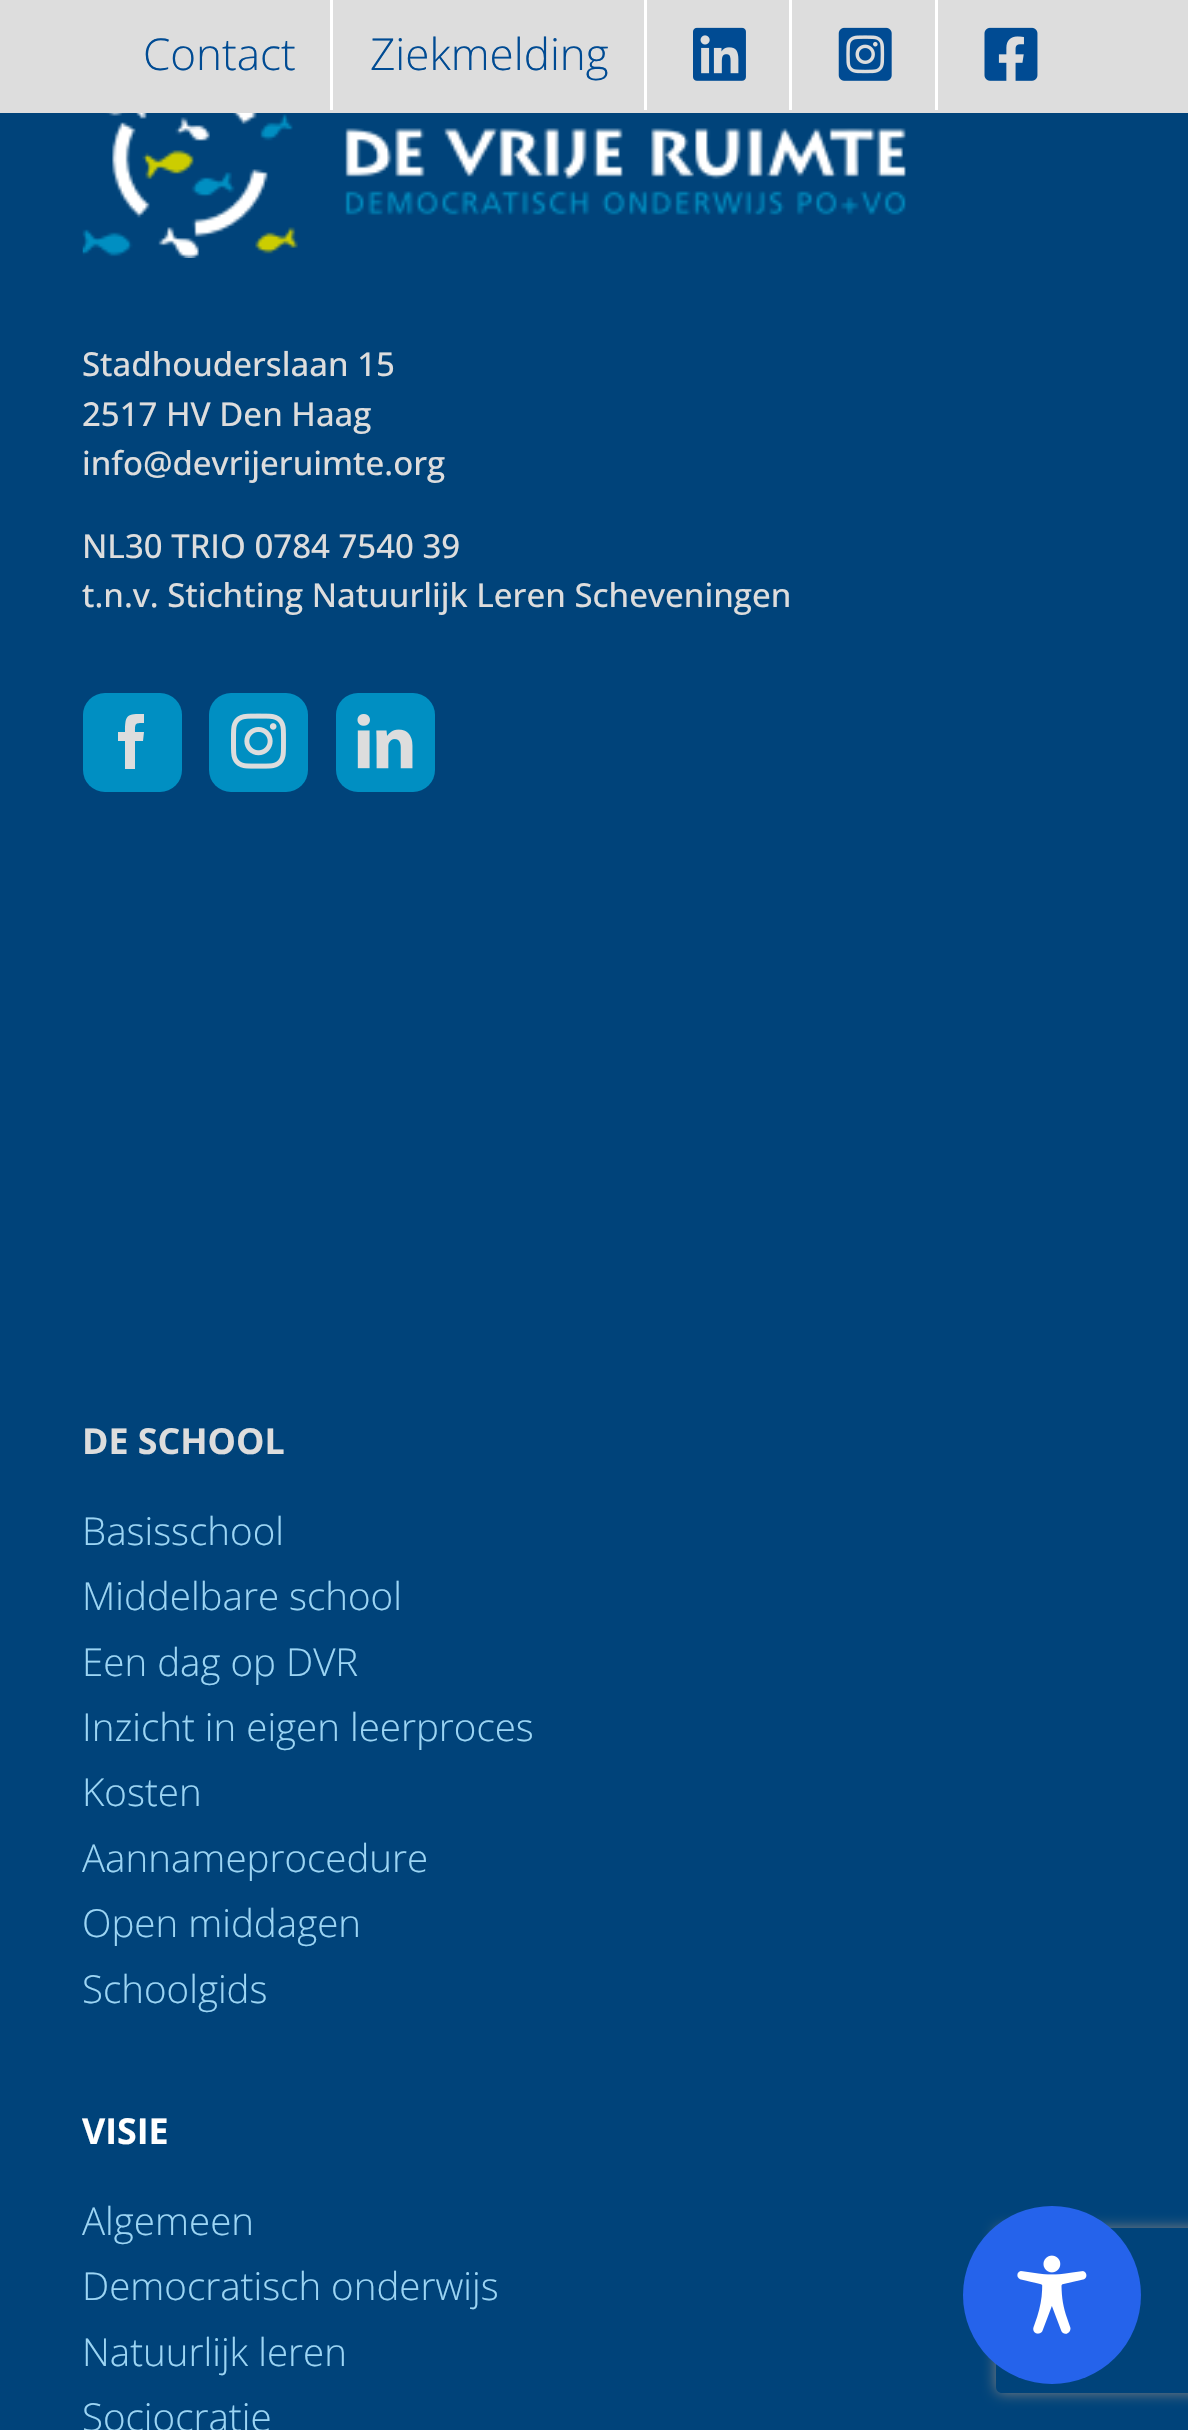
static SkFont makeFont(const char* family, int weight, float size, bool italic = false) {
  SkFontStyle style(weight, SkFontStyle::kNormal_Width,
    italic ? SkFontStyle::kItalic_Slant : SkFontStyle::kUpright_Slant);
  SkFont result(fontMgr->matchFamilyStyle(family, style), size);
  result.setSubpixel(true);
  return result;
}

static void text(SkCanvas* c, const char* s, float x, float y, const SkFont& font, SkColor color) {
  SkPaint ink(SkColor4f::FromColor(color));
  ink.setAntiAlias(true);
  c->drawString(s, x, y, font, ink);
}

static void box(SkCanvas* c, float l, float t, float r, float b, SkColor color) {
  SkPaint ink(SkColor4f::FromColor(color));
  ink.setAntiAlias(true);
  c->drawRect(SkRect::MakeLTRB(l, t, r, b), ink);
}

static void roundBox(SkCanvas* c, float l, float t, float r, float b, float radius, SkColor color) {
  SkPaint ink(SkColor4f::FromColor(color));
  ink.setAntiAlias(true);
  c->drawRoundRect(SkRect::MakeLTRB(l, t, r, b), radius, radius, ink);
}

static void picture(SkCanvas* c, const char* path, float l, float t, float r, float b) {
  auto image = SkImages::DeferredFromEncodedData(SkData::MakeFromFileName(path));
  c->drawImageRect(image, SkRect::MakeLTRB(l, t, r, b), SkSamplingOptions());
}

void draw(SkCanvas* c) {
  SkPaint paint;
  paint.setAntiAlias(true);
  c->clear(0xff00437a);
  box(c, 0, 0, 1188, 113, 0xffdddddd);
  SkFont face1 = makeFont("Open Sans", 300, 44);
  text(c, "Contact", 143, 70, face1, 0xff004b93);
  box(c, 330, 0, 333, 110, 0xffffffff);
  text(c, "Ziekmelding", 370, 70, face1, 0xff004b93);
  box(c, 644, 0, 647, 110, 0xffffffff);
  picture(c, "img_01.png", 693, 27, 746, 81);
  box(c, 789, 0, 792, 110, 0xffffffff);
  picture(c, "img_02.png", 838, 27, 892, 81);
  box(c, 935, 0, 938, 110, 0xffffffff);
  picture(c, "img_03.png", 984, 27, 1038, 81);
  picture(c, "img_04.png", 82, 113, 906, 258);
  SkFont face2 = makeFont("Open Sans", 500, 33);
  text(c, "Stadhouderslaan 15", 82, 376, face2, 0xffdddddd);
  text(c, "2517 HV Den Haag", 82, 426, face2, 0xffdddddd);
  text(c, "info@devrijeruimte.org", 82, 475, face2, 0xffdddddd);
  text(c, "NL30 TRIO 0784 7540 39", 82, 558, face2, 0xffdddddd);
  text(c, "t.n.v. Stichting Natuurlijk Leren Scheveningen", 82, 607, face2, 0xffdddddd);
  roundBox(c, 83, 693, 182, 792, 22, 0xff008fc2);
  paint.setColor(0xffdddddd);
  c->drawPath(SkPathBuilder().moveTo(135, 769).lineTo(125, 769).lineTo(125, 741).lineTo(118, 741).lineTo(118, 732).lineTo(125, 732).cubicTo(125, 714, 127, 714, 144, 714).lineTo(144, 723).cubicTo(135, 723, 135, 723, 135, 732).lineTo(144, 732).lineTo(143, 741).lineTo(135, 741).close().detach(), paint);
  roundBox(c, 209, 693, 308, 792, 22, 0xff008fc2);
  picture(c, "img_05.png", 231, 713, 286, 769);
  roundBox(c, 336, 693, 435, 792, 22, 0xff008fc2);
  picture(c, "img_06.png", 357, 714, 413, 769);
  SkFont face3 = makeFont("Open Sans", 700, 35.75f);
  text(c, "DE SCHOOL", 82, 1454, face3, 0xffdddddd);
  SkFont face4 = makeFont("Open Sans", 300, 38.5f);
  text(c, "Basisschool", 82, 1545, face4, 0xff9cd5f4);
  text(c, "Middelbare school", 82, 1610, face4, 0xff9cd5f4);
  text(c, "Een dag op DVR", 82, 1676, face4, 0xff9cd5f4);
  text(c, "Inzicht in eigen leerproces", 82, 1741, face4, 0xff9cd5f4);
  text(c, "Kosten", 82, 1806, face4, 0xff9cd5f4);
  text(c, "Aannameprocedure", 82, 1872, face4, 0xff9cd5f4);
  text(c, "Open middagen", 82, 1937, face4, 0xff9cd5f4);
  text(c, "Schoolgids", 82, 2003, face4, 0xff9cd5f4);
  text(c, "VISIE", 82, 2144, face3, 0xffffffff);
  text(c, "Algemeen", 82, 2235, face4, 0xff9cd5f4);
  text(c, "Democratisch onderwijs", 82, 2300, face4, 0xff9cd5f4);
  text(c, "Natuurlijk leren", 82, 2366, face4, 0xff9cd5f4);
  text(c, "Sociocratie", 82, 2431, face4, 0xff9cd5f4);
  c->save();
  c->clipPath(SkPathBuilder(SkPathFillType::kEvenOdd).moveTo(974, 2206).lineTo(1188, 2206).lineTo(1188, 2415).lineTo(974, 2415).close().moveTo(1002, 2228).lineTo(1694, 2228).cubicTo(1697.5f, 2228, 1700, 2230.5f, 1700, 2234).lineTo(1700, 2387).cubicTo(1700, 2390.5f, 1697.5f, 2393, 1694, 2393).lineTo(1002, 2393).cubicTo(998.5f, 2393, 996, 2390.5f, 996, 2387).lineTo(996, 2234).cubicTo(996, 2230.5f, 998.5f, 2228, 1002, 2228).close().detach(), true);
  paint.setColor(0xff808080);
  paint.setMaskFilter(SkMaskFilter::MakeBlur(kNormal_SkBlurStyle, 7));
  c->drawRoundRect(SkRect::MakeLTRB(996, 2228, 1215, 2393), 6, 6, paint);
  paint.setMaskFilter(nullptr);
  c->restore();
  paint.setColor(0xff2563eb);
  c->drawCircle(1052, 2295, 89, paint);
  picture(c, "img_07.png", 1017, 2255, 1087, 2334);
}
